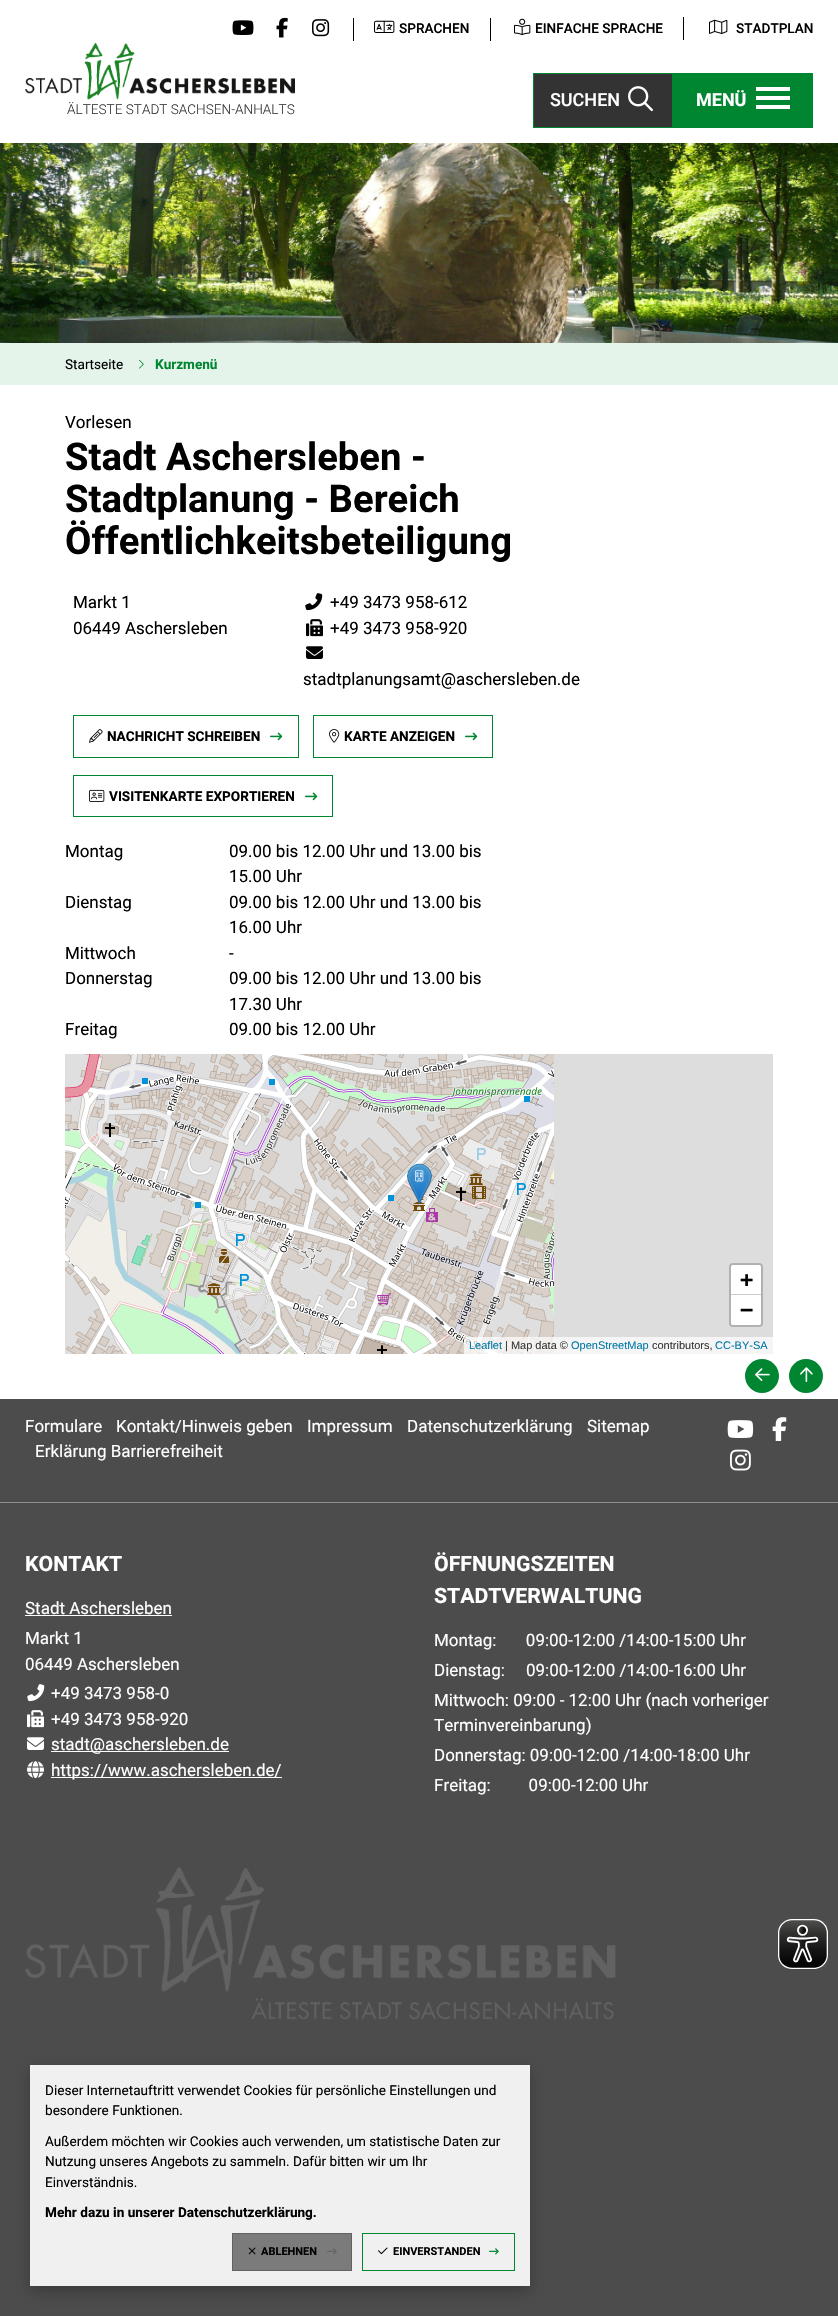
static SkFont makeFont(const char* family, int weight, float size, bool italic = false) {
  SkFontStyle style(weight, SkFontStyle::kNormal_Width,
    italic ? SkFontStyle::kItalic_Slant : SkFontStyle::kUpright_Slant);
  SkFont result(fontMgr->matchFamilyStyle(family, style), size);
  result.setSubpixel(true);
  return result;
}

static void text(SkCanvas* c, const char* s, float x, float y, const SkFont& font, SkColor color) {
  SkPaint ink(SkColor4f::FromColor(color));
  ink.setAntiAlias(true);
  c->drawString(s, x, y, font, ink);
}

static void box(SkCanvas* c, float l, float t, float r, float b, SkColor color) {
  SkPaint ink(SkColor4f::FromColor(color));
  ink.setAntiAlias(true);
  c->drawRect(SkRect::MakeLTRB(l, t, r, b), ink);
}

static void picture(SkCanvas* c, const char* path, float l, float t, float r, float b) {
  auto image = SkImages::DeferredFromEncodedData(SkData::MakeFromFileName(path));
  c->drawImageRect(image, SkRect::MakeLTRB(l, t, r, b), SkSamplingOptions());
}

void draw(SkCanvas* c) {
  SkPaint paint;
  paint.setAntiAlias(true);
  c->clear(0xff4c4c4c);
  box(c, 0, 0, 838, 1399, 0xffffffff);
  picture(c, "img_01.png", 232, 20, 254, 35);
  picture(c, "img_02.png", 276, 17, 288, 38);
  picture(c, "img_03.png", 312, 19, 330, 37);
  box(c, 353, 18, 354, 41, 0xff000000);
  picture(c, "img_04.png", 374, 20, 395, 33);
  SkFont face1 = makeFont("Roboto", 500, 13.6f);
  text(c, "SPRACHEN", 399, 33, face1, 0xff000000);
  box(c, 490, 18, 491, 41, 0xff000000);
  picture(c, "img_05.png", 514, 18, 531, 35);
  text(c, "EINFACHE SPRACHE", 535, 33, face1, 0xff000000);
  box(c, 683, 17, 684, 40, 0xff000000);
  picture(c, "img_06.png", 709, 19, 728, 34);
  text(c, "STADTPLAN", 736, 33, face1, 0xff000000);
  paint.setColor(0xff333333);
  c->drawRect(SkRect::MakeLTRB(533.5f, 73.5f, 672.5f, 127.5f), paint);
  paint.setStyle(SkPaint::kStroke_Style);
  paint.setStrokeWidth(1);
  paint.setColor(0xff008530);
  c->drawRect(SkRect::MakeLTRB(533.5f, 73.5f, 672.5f, 127.5f), paint);
  SkFont face2 = makeFont("Roboto", 500, 18);
  text(c, "SUCHEN", 550, 106, face2, 0xffffffff);
  picture(c, "img_07.png", 628, 86, 653, 112);
  box(c, 673, 73, 813, 128, 0xff008530);
  SkFont face3 = makeFont("Roboto", 700, 18);
  text(c, "MENÜ", 696, 106, face3, 0xffffffff);
  box(c, 756, 87, 790, 91, 0xffffffff);
  box(c, 756, 96, 790, 100, 0xffffffff);
  box(c, 756, 105, 790, 109, 0xffffffff);
  picture(c, "img_08.png", 25, 43, 295, 100);
  SkFont face4 = makeFont("Roboto", 300, 13.6f);
  text(c, "ÄLTESTE STADT SACHSEN-ANHALTS", 67, 114, face4, 0xff383838);
  picture(c, "img_09.png", 0, 143, 838, 343);
  box(c, 0, 343, 838, 385, 0xffe5f4ea);
  SkFont face5 = makeFont("Roboto", 400, 13.6f);
  text(c, "Startseite", 65, 369, face5, 0xff000000);
  picture(c, "img_10.png", 139, 359, 144, 369);
  SkFont face6 = makeFont("Roboto", 700, 13.6f);
  text(c, "Kurzmenü", 155, 369, face6, 0xff008530);
  SkFont face7 = makeFont("Roboto", 400, 17);
  text(c, "Vorlesen", 65, 428, face7, 0xff000000);
  SkFont face8 = makeFont("Roboto", 700, 38.25f);
  text(c, "Stadt Aschersleben -", 65, 470, face8, 0xff000000);
  text(c, "Stadtplanung - Bereich", 65, 512, face8, 0xff000000);
  text(c, "Öffentlichkeitsbeteiligung", 65, 554, face8, 0xff000000);
  text(c, "Markt 1", 73, 608, face7, 0xff000000);
  text(c, "06449 Aschersleben", 73, 634, face7, 0xff000000);
  picture(c, "img_11.png", 305, 593, 323, 611);
  text(c, "+49 3473 958-612", 330, 608, face7, 0xff000000);
  picture(c, "img_12.png", 306, 619, 323, 637);
  text(c, "+49 3473 958-920", 330, 634, face7, 0xff000000);
  picture(c, "img_13.png", 306, 646, 323, 659);
  text(c, "stadtplanungsamt@aschersleben.de", 303, 685, face7, 0xff000000);
  c->drawRect(SkRect::MakeLTRB(73.5f, 715.5f, 298.5f, 757.5f), paint);
  picture(c, "img_14.png", 89, 729, 103, 743);
  text(c, "NACHRICHT SCHREIBEN", 107, 741, face6, 0xff000000);
  picture(c, "img_15.png", 270, 732, 283, 741);
  c->drawRect(SkRect::MakeLTRB(313.5f, 715.5f, 492.5f, 757.5f), paint);
  picture(c, "img_16.png", 329, 729, 340, 743);
  text(c, "KARTE ANZEIGEN", 344, 741, face6, 0xff000000);
  picture(c, "img_15.png", 465, 732, 478, 741);
  c->drawRect(SkRect::MakeLTRB(73.5f, 775.5f, 332.5f, 816.5f), paint);
  picture(c, "img_17.png", 89, 789, 105, 802);
  text(c, "VISITENKARTE EXPORTIEREN", 109, 801, face6, 0xff000000);
  picture(c, "img_15.png", 305, 792, 318, 801);
  text(c, "Montag", 65, 857, face7, 0xff000000);
  text(c, "09.00 bis 12.00 Uhr und 13.00 bis", 229, 857, face7, 0xff000000);
  text(c, "15.00 Uhr", 229, 882, face7, 0xff000000);
  text(c, "Dienstag", 65, 908, face7, 0xff000000);
  text(c, "09.00 bis 12.00 Uhr und 13.00 bis", 229, 908, face7, 0xff000000);
  text(c, "16.00 Uhr", 229, 933, face7, 0xff000000);
  text(c, "Mittwoch", 65, 959, face7, 0xff000000);
  text(c, "-", 229, 959, face7, 0xff000000);
  text(c, "Donnerstag", 65, 984, face7, 0xff000000);
  text(c, "09.00 bis 12.00 Uhr und 13.00 bis", 229, 984, face7, 0xff000000);
  text(c, "17.30 Uhr", 229, 1010, face7, 0xff000000);
  text(c, "Freitag", 65, 1035, face7, 0xff000000);
  text(c, "09.00 bis 12.00 Uhr", 229, 1035, face7, 0xff000000);
  box(c, 65, 1054, 773, 1354, 0xffdddddd);
  picture(c, "img_18.png", 65, 1054, 298, 1077);
  picture(c, "img_19.png", 298, 1054, 554, 1077);
  picture(c, "img_20.png", 65, 1077, 298, 1333);
  picture(c, "img_21.png", 298, 1077, 554, 1333);
  picture(c, "img_22.png", 66, 1333, 298, 1354);
  picture(c, "img_23.png", 298, 1333, 554, 1354);
  picture(c, "img_24.png", 407, 1163, 432, 1204);
  picture(c, "img_25.png", 415, 1170, 424, 1182);
  paint.setStrokeWidth(2);
  paint.setColor(0xffb1b1b1);
  c->drawRoundRect(SkRect::MakeLTRB(730, 1264, 762, 1326), 3, 3, paint);
  paint.setStyle(SkPaint::kFill_Style);
  paint.setColor(0xffffffff);
  c->drawPath(SkPathBuilder().moveTo(733, 1265).lineTo(759, 1265).cubicTo(760, 1265, 761, 1266, 761, 1267).lineTo(761, 1295).lineTo(731, 1295).lineTo(731, 1267).cubicTo(731, 1266, 732, 1265, 733, 1265).close().detach(), paint);
  box(c, 731, 1294, 761, 1295, 0xffcccccc);
  SkFont face9 = makeFont("DejaVu Sans Mono", 700, 22);
  text(c, "+", 740, 1287, face9, 0xff000000);
  c->drawPath(SkPathBuilder().moveTo(731, 1295).lineTo(761, 1295).lineTo(761, 1323).cubicTo(761, 1324, 760, 1325, 759, 1325).lineTo(733, 1325).cubicTo(732, 1325, 731, 1324, 731, 1323).close().detach(), paint);
  text(c, "−", 740, 1317, face9, 0xff000000);
  box(c, 464, 1337, 773, 1354, 0xb3ffffff);
  SkFont face10 = makeFont("Liberation Sans", 400, 11);
  text(c, "Leaflet", 469, 1349, face10, 0xff0078a8);
  text(c, "| Map data ©", 505, 1349, face10, 0xff383838);
  text(c, "OpenStreetMap", 571, 1349, face10, 0xff0078a8);
  text(c, "contributors,", 652, 1349, face10, 0xff383838);
  text(c, "CC-BY-SA", 715, 1349, face10, 0xff0078a8);
  paint.setColor(0xff008530);
  c->drawCircle(762, 1376, 17, paint);
  picture(c, "img_26.png", 755, 1368, 770, 1381);
  c->drawCircle(806, 1376, 17, paint);
  picture(c, "img_27.png", 800, 1367, 813, 1382);
  box(c, 0, 1502, 838, 1503, 0xff909090);
  text(c, "Formulare", 25, 1432, face7, 0xffffffff);
  text(c, "Kontakt/Hinweis geben", 116, 1432, face7, 0xffffffff);
  text(c, "Impressum", 307, 1432, face7, 0xffffffff);
  text(c, "Datenschutzerklärung", 407, 1432, face7, 0xffffffff);
  text(c, "Sitemap", 587, 1432, face7, 0xffffffff);
  text(c, "Erklärung Barrierefreiheit", 35, 1457, face7, 0xffffffff);
  picture(c, "img_28.png", 727, 1420, 754, 1438);
  picture(c, "img_29.png", 772, 1417, 787, 1441);
  picture(c, "img_30.png", 730, 1449, 751, 1471);
  SkFont face11 = makeFont("Roboto", 700, 21.25f);
  text(c, "KONTAKT", 25, 1571, face11, 0xffffffff);
  text(c, "Stadt Aschersleben", 25, 1614, face7, 0xffffffff);
  box(c, 25, 1615, 172, 1616, 0xffffffff);
  text(c, "Markt 1", 25, 1644, face7, 0xffffffff);
  text(c, "06449 Aschersleben", 25, 1670, face7, 0xffffffff);
  picture(c, "img_31.png", 27, 1684, 45, 1702);
  text(c, "+49 3473 958-0", 51, 1699, face7, 0xffffffff);
  picture(c, "img_32.png", 27, 1710, 44, 1728);
  text(c, "+49 3473 958-920", 51, 1725, face7, 0xffffffff);
  picture(c, "img_33.png", 27, 1737, 44, 1750);
  box(c, 51, 1751, 229, 1752, 0xffffffff);
  text(c, "stadt@aschersleben.de", 51, 1750, face7, 0xffffffff);
  picture(c, "img_34.png", 27, 1761, 44, 1779);
  box(c, 51, 1777, 282, 1778, 0xffffffff);
  text(c, "https://www.aschersleben.de/", 51, 1776, face7, 0xffffffff);
  text(c, "ÖFFNUNGSZEITEN", 434, 1571, face11, 0xffffffff);
  text(c, "STADTVERWALTUNG", 434, 1603, face11, 0xffffffff);
  text(c, "Montag:       09:00-12:00 /14:00-15:00 Uhr", 434, 1646, face7, 0xffffffff);
  text(c, "Dienstag:     09:00-12:00 /14:00-16:00 Uhr", 434, 1676, face7, 0xffffffff);
  text(c, "Mittwoch: 09:00 - 12:00 Uhr (nach vorheriger", 434, 1706, face7, 0xffffffff);
  text(c, "Terminvereinbarung)", 434, 1731, face7, 0xffffffff);
  text(c, "Donnerstag: 09:00-12:00 /14:00-18:00 Uhr", 434, 1761, face7, 0xffffffff);
  text(c, "Freitag:         09:00-12:00 Uhr", 434, 1791, face7, 0xffffffff);
  picture(c, "img_35.png", 25, 1867, 616, 2020);
  picture(c, "img_36.png", 778, 1919, 828, 1969);
  paint.setColor(0x40000000);
  paint.setMaskFilter(SkMaskFilter::MakeBlur(kNormal_SkBlurStyle, 7.5f));
  c->drawRect(SkRect::MakeLTRB(30, 2070, 530, 2291), paint);
  paint.setMaskFilter(nullptr);
  box(c, 30, 2065, 530, 2286, 0xfff0f0f0);
  text(c, "Dieser Internetauftritt verwendet Cookies für persönliche Einstellungen und", 45, 2095, face5, 0xff000000);
  text(c, "besondere Funktionen.", 45, 2115, face5, 0xff000000);
  text(c, "Außerdem möchten wir Cookies auch verwenden, um statistische Daten zur", 45, 2146, face5, 0xff000000);
  text(c, "Nutzung unseres Angebots zu sammeln. Dafür bitten wir um Ihr", 45, 2166, face5, 0xff000000);
  text(c, "Einverständnis.", 45, 2187, face5, 0xff000000);
  text(c, "Mehr dazu in unserer Datenschutzerklärung.", 45, 2217, face6, 0xff000000);
  paint.setColor(0xff7b7b7b);
  c->drawRect(SkRect::MakeLTRB(232.5f, 2233.5f, 351.5f, 2270.5f), paint);
  paint.setStyle(SkPaint::kStroke_Style);
  paint.setStrokeWidth(1);
  paint.setColor(0xff636363);
  c->drawRect(SkRect::MakeLTRB(232.5f, 2233.5f, 351.5f, 2270.5f), paint);
  picture(c, "img_37.png", 248, 2247, 256, 2255);
  SkFont face12 = makeFont("Roboto", 700, 11);
  text(c, "ABLEHNEN", 261, 2255, face12, 0xff000000);
  picture(c, "img_38.png", 327, 2248, 337, 2255);
  paint.setColor(0xff008530);
  c->drawRect(SkRect::MakeLTRB(362.5f, 2233.5f, 514.5f, 2270.5f), paint);
  picture(c, "img_39.png", 378, 2247, 388, 2255);
  text(c, "EINVERSTANDEN", 393, 2255, face12, 0xff000000);
  picture(c, "img_40.png", 489, 2248, 499, 2255);
}
